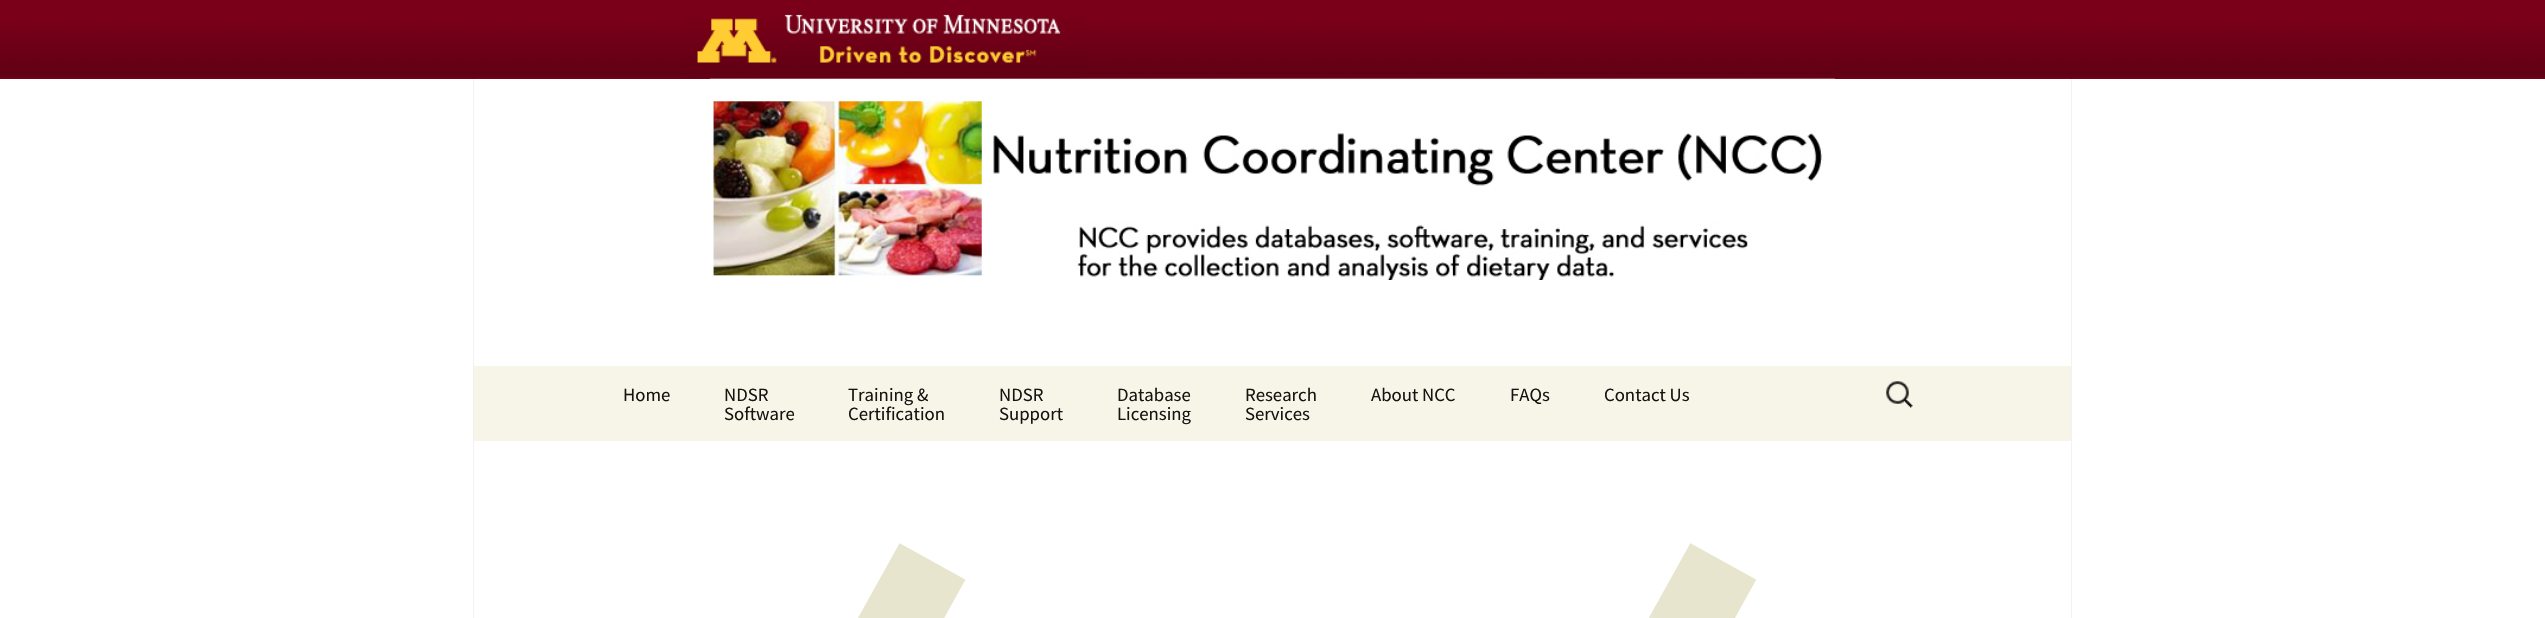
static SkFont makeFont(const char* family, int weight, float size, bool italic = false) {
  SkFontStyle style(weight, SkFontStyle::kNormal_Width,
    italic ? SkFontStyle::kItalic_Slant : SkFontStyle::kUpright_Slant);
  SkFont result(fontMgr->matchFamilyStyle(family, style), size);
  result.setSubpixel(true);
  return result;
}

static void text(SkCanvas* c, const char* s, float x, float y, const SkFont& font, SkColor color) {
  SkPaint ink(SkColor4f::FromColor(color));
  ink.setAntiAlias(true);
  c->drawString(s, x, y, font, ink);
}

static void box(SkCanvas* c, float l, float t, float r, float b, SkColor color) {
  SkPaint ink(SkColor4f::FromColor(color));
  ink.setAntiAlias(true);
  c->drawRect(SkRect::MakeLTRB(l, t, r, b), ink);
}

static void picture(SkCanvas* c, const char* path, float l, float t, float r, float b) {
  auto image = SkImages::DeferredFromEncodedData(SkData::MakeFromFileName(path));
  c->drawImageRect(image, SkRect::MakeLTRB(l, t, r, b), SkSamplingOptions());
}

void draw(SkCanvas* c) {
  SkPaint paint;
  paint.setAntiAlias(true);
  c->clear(0xffffffff);
  box(c, 0, 0, 2545, 79, 0xff7a0019);
  picture(c, "img_01.png", 0, 25, 2545, 78);
  picture(c, "img_02.png", 685, 14, 1085, 78);
  box(c, 2071, 79, 2072, 618, 0xfff2f2f2);
  box(c, 473, 79, 474, 618, 0xfff2f2f2);
  picture(c, "img_03.png", 710, 78, 1835, 280);
  box(c, 474, 366, 2071, 441, 0xfff7f5e7);
  SkFont face1 = makeFont("Source Sans Pro", 400, 18.75f);
  text(c, "Home", 623, 401, face1, 0xff141412);
  text(c, "NDSR", 724, 401, face1, 0xff141412);
  text(c, "Software", 724, 420, face1, 0xff141412);
  text(c, "Training &", 848, 401, face1, 0xff141412);
  text(c, "Certification", 848, 420, face1, 0xff141412);
  text(c, "NDSR", 999, 401, face1, 0xff141412);
  text(c, "Support", 999, 420, face1, 0xff141412);
  text(c, "Database", 1117, 401, face1, 0xff141412);
  text(c, "Licensing", 1117, 420, face1, 0xff141412);
  text(c, "Research", 1245, 401, face1, 0xff141412);
  text(c, "Services", 1245, 420, face1, 0xff141412);
  text(c, "About NCC", 1371, 401, face1, 0xff141412);
  text(c, "FAQs", 1510, 401, face1, 0xff141412);
  text(c, "Contact Us", 1604, 401, face1, 0xff141412);
  picture(c, "img_04.png", 1886, 381, 1913, 408);
  picture(c, "img_05.png", 858, 543, 1756, 618);
}
